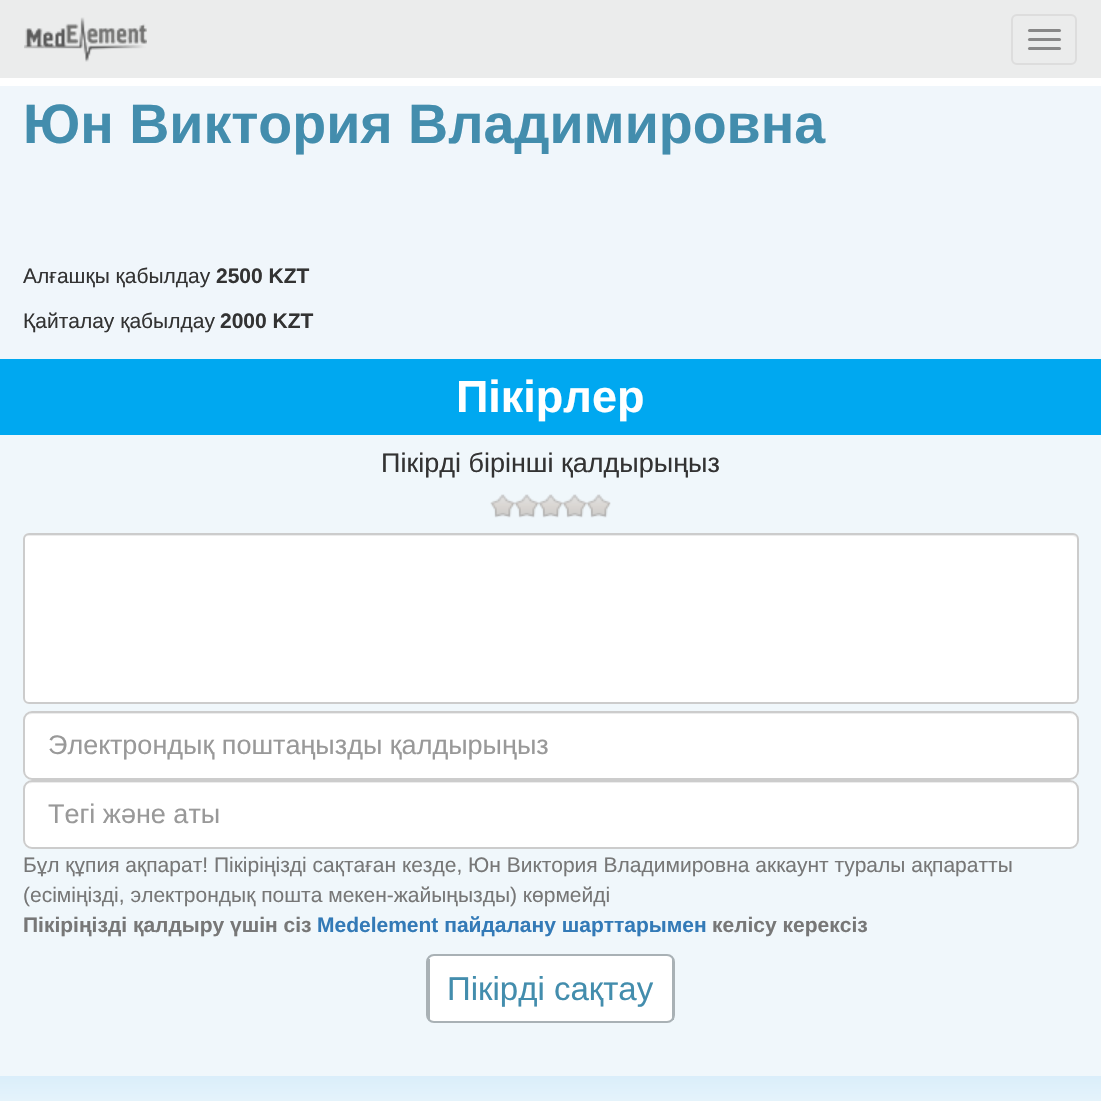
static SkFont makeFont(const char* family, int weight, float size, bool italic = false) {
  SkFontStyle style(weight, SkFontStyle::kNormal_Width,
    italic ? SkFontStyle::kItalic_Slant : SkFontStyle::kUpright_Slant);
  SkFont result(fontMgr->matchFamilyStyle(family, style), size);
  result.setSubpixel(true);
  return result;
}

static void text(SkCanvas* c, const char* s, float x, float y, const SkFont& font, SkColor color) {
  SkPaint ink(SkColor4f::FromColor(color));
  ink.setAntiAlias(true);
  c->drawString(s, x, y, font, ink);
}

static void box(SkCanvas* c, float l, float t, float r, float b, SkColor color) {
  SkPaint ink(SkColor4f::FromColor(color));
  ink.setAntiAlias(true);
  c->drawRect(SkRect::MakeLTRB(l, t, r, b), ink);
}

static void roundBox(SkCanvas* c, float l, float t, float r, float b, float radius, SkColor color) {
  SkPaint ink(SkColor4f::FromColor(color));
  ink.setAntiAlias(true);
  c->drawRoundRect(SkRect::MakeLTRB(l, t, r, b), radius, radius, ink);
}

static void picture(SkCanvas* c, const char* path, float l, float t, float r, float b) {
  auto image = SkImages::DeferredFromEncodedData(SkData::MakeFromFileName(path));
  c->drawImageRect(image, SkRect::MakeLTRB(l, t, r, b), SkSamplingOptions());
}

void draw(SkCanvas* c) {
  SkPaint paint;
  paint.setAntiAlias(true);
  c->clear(0xffffffff);
  box(c, 0, 0, 1101, 78, 0xffebecec);
  picture(c, "img_01.png", 24, 17, 147, 62);
  paint.setStyle(SkPaint::kStroke_Style);
  paint.setStrokeWidth(2);
  paint.setColor(0xffdddddd);
  c->drawRoundRect(SkRect::MakeLTRB(1012, 15, 1076, 64), 5, 5, paint);
  roundBox(c, 1028, 29, 1061, 32, 1.5f, 0xff888888);
  roundBox(c, 1028, 38, 1061, 41, 1.5f, 0xff888888);
  roundBox(c, 1028, 47, 1061, 50, 1.5f, 0xff888888);
  box(c, 0, 86, 1101, 359, 0xfff0f6fb);
  SkFont face1 = makeFont("Liberation Sans", 700, 55.5f);
  text(c, "Юн Виктория Владимировна", 23, 143, face1, 0xff438dad);
  SkFont face2 = makeFont("Liberation Sans", 400, 21);
  text(c, "Алғашқы қабылдау", 23, 283, face2, 0xff333333);
  SkFont face3 = makeFont("Liberation Sans", 700, 21);
  text(c, "2500 KZT", 216, 283, face3, 0xff333333);
  text(c, "Қайталау қабылдау", 23, 328, face2, 0xff333333);
  text(c, "2000 KZT", 220, 328, face3, 0xff333333);
  box(c, 0, 435, 1101, 1076, 0xfff0f7fb);
  box(c, 0, 359, 1101, 435, 0xff00a8f0);
  SkFont face4 = makeFont("Liberation Sans", 700, 45);
  text(c, "Пікірлер", 456, 412, face4, 0xffffffff);
  SkFont face5 = makeFont("Liberation Sans", 400, 27);
  text(c, "Пікірді бірінші қалдырыңыз", 381, 472, face5, 0xff333333);
  picture(c, "img_05.png", 586, 494, 611, 518);
  picture(c, "img_04.png", 562, 494, 587, 518);
  picture(c, "img_04.png", 538, 494, 563, 518);
  picture(c, "img_03.png", 514, 494, 539, 518);
  picture(c, "img_02.png", 490, 494, 515, 518);
  roundBox(c, 23, 533, 1079, 704, 6, 0xffffffff);
  paint.setStyle(SkPaint::kFill_Style);
  paint.setColor(0xffececec);
  c->drawPath(SkPathBuilder().moveTo(28, 536).lineTo(1072, 536).cubicTo(1075, 536, 1077, 538, 1077, 540).cubicTo(1077, 537, 1075, 534, 1072, 534).lineTo(29, 534).cubicTo(26, 534, 24, 537, 24, 540).cubicTo(24, 538, 26, 536, 28, 536).close().detach(), paint);
  paint.setStyle(SkPaint::kStroke_Style);
  paint.setColor(0xffcccccc);
  c->drawRoundRect(SkRect::MakeLTRB(24, 534, 1078, 703), 5, 5, paint);
  roundBox(c, 23, 711, 1079, 780, 9, 0xffffffff);
  paint.setStyle(SkPaint::kFill_Style);
  paint.setColor(0xffececec);
  c->drawPath(SkPathBuilder().moveTo(32, 714).lineTo(1070, 714).cubicTo(1074, 714, 1077, 717, 1077, 722).lineTo(1077, 721).cubicTo(1077, 717, 1073, 713, 1069, 713).lineTo(32, 713).cubicTo(28, 713, 24, 717, 24, 721).lineTo(24, 722).cubicTo(24, 717, 27, 714, 32, 714).close().detach(), paint);
  paint.setStyle(SkPaint::kStroke_Style);
  paint.setColor(0xffcccccc);
  c->drawRoundRect(SkRect::MakeLTRB(24, 712, 1078, 779), 8, 8, paint);
  text(c, "Электрондық поштаңызды қалдырыңыз", 48, 754, face5, 0xff999999);
  roundBox(c, 23, 780, 1079, 849, 9, 0xffffffff);
  paint.setStyle(SkPaint::kFill_Style);
  paint.setColor(0xffececec);
  c->drawPath(SkPathBuilder().moveTo(32, 783).lineTo(1070, 783).cubicTo(1074, 783, 1077, 786, 1077, 790).cubicTo(1077, 786, 1073, 782, 1069, 782).lineTo(32, 782).cubicTo(28, 782, 24, 786, 24, 790).cubicTo(24, 786, 27, 783, 32, 783).close().detach(), paint);
  paint.setStyle(SkPaint::kStroke_Style);
  paint.setColor(0xffcccccc);
  c->drawRoundRect(SkRect::MakeLTRB(24, 781, 1078, 848), 8, 8, paint);
  text(c, "Тегі және аты", 48, 823, face5, 0xff999999);
  text(c, "Бұл құпия ақпарат! Пікіріңізді сақтаған кезде, Юн Виктория Владимировна аккаунт туралы ақпаратты", 23, 872, face2, 0xff777777);
  text(c, "(есіміңізді, электрондық пошта мекен-жайыңызды) көрмейді", 23, 902, face2, 0xff777777);
  text(c, "Пікіріңізді қалдыру үшін сіз", 23, 932, face3, 0xff777777);
  text(c, "Medelement пайдалану шарттарымен", 317, 932, face3, 0xff337ab7);
  text(c, "келісу керексіз", 712, 932, face3, 0xff777777);
  paint.setStyle(SkPaint::kFill_Style);
  paint.setColor(0xffffffff);
  c->drawPath(SkPathBuilder().moveTo(434, 956).lineTo(668, 956).cubicTo(670, 956, 672, 958, 672, 962).lineTo(672, 1016).cubicTo(672, 1019, 670, 1022, 668, 1022).lineTo(434, 1022).cubicTo(431, 1022, 429, 1019, 429, 1016).lineTo(429, 962).cubicTo(429, 958, 431, 956, 434, 956).close().detach(), paint);
  paint.setStyle(SkPaint::kStroke_Style);
  paint.setColor(0xffa9b1b5);
  c->drawRoundRect(SkRect::MakeLTRB(427, 955, 674, 1022), 7, 7, paint);
  box(c, 672, 959, 674, 1020, 0xffa9b1b5);
  box(c, 428, 959, 430, 1020, 0xffa9b1b5);
  SkFont face6 = makeFont("Liberation Sans", 400, 33);
  text(c, "Пікірді сақтау", 447, 1000, face6, 0xff438dad);
  paint.setStyle(SkPaint::kFill_Style);
  {
    const SkColor colors[] = {0xffdaeefa, 0xffffffff, 0xffffffff, 0xffdef0fb};
    const float stops[] = {0, 0.5f, 0.69f, 1};
    const SkPoint ends[] = {{551, 1076}, {551, 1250}};
    paint.setShader(SkGradientShader::MakeLinear(ends, colors, stops, 4, SkTileMode::kClamp));
    paint.setAlpha(255);
  }
  c->drawRect(SkRect::MakeLTRB(0, 1076, 1101, 1101), paint);
}
